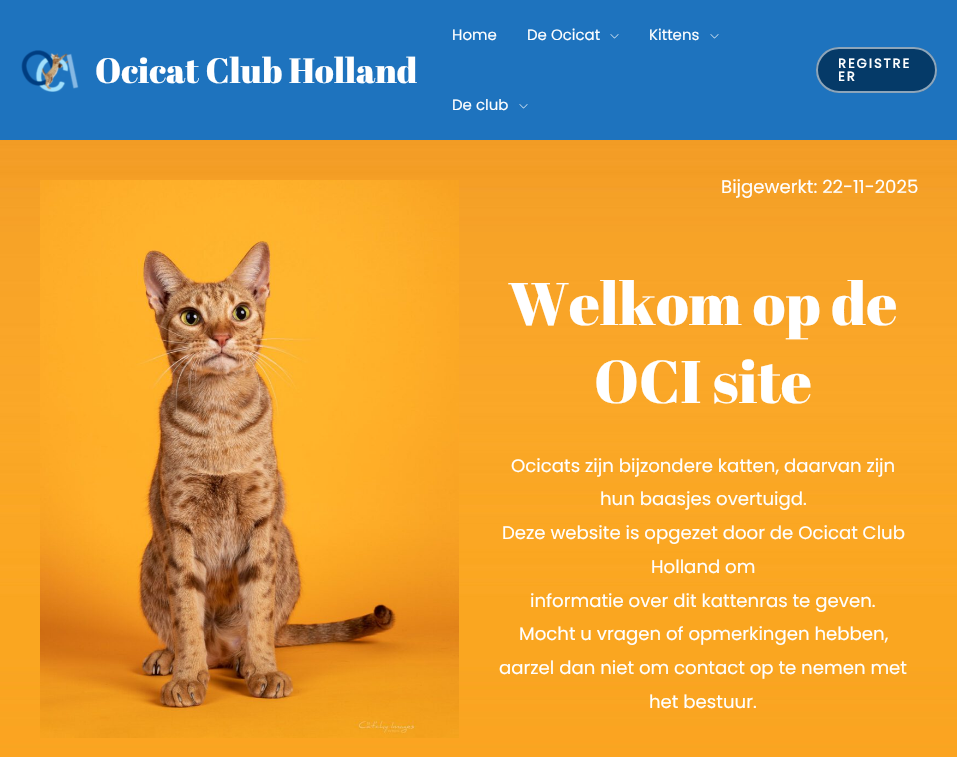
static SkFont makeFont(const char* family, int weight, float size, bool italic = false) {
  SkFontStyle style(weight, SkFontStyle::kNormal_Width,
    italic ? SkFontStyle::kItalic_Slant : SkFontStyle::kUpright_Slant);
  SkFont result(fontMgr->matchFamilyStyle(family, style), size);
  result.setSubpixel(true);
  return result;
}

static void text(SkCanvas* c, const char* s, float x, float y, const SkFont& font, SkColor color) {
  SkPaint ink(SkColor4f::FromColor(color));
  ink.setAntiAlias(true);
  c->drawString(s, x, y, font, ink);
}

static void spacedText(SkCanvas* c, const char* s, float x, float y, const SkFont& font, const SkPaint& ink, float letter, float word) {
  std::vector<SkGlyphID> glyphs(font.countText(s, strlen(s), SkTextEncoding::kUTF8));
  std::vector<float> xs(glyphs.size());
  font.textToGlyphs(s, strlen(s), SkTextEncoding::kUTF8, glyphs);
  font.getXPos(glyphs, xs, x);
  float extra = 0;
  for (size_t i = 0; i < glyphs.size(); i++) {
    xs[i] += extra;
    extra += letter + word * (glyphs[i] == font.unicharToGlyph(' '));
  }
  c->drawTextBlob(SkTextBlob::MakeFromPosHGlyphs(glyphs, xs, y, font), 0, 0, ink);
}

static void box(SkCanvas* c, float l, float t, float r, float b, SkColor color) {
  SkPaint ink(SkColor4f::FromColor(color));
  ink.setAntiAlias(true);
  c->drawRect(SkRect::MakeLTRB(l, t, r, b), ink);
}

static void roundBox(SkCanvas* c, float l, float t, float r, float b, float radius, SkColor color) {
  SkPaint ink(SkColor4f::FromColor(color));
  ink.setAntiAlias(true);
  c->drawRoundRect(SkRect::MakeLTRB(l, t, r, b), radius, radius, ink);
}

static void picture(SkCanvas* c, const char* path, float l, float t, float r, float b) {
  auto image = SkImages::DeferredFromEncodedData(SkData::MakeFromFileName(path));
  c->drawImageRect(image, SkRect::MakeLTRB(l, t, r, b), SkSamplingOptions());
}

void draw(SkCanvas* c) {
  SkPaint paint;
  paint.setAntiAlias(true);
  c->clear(0xffffffff);
  box(c, 0, 0, 957, 140, 0xff1e73be);
  picture(c, "img_01.png", 21, 50, 79, 92);
  SkFont face1 = makeFont("Abril Fatface", 400, 35);
  text(c, "Ocicat Club Holland", 95, 83, face1, 0xffffffff);
  SkFont face2 = makeFont("Poppins", 400, 15);
  text(c, "Home", 452, 40, face2, 0xffffffff);
  text(c, "De Ocicat", 527, 40, face2, 0xffffffff);
  picture(c, "img_02.png", 610, 34, 619, 39);
  text(c, "Kittens", 649, 40, face2, 0xffffffff);
  picture(c, "img_02.png", 710, 34, 719, 39);
  text(c, "De club", 452, 110, face2, 0xffffffff);
  picture(c, "img_02.png", 519, 104, 528, 109);
  roundBox(c, 816, 47, 937, 93, 23, 0xff053a68);
  paint.setStyle(SkPaint::kStroke_Style);
  paint.setStrokeWidth(2);
  paint.setColor(0x8affffff);
  c->drawRoundRect(SkRect::MakeLTRB(817, 48, 936, 92), 22, 22, paint);
  SkFont face3 = makeFont("Poppins", 700, 13);
  paint.setStyle(SkPaint::kFill_Style);
  paint.setColor(0xffffffff);
  spacedText(c, "REGISTRE", 838, 68, face3, paint, 2, 0);
  spacedText(c, "ER", 838, 81, face3, paint, 2, 0);
  picture(c, "img_03.png", 0, 140, 957, 757);
  picture(c, "img_04.png", 40, 180, 459, 738);
  SkFont face4 = makeFont("Poppins", 400, 18.15f);
  text(c, "Bijgewerkt: 22-11-2025", 721, 193, face4, 0xffffffff);
  SkFont face5 = makeFont("Abril Fatface", 400, 60);
  text(c, "Welkom op de", 508, 325, face5, 0xffffffff);
  text(c, "OCI site", 594, 403, face5, 0xffffffff);
  text(c, "Ocicats zijn bijzondere katten, daarvan zijn", 511, 472, face4, 0xffffffff);
  text(c, "hun baasjes overtuigd.", 600, 505, face4, 0xffffffff);
  text(c, "Deze website is opgezet door de Ocicat Club", 502, 539, face4, 0xffffffff);
  text(c, "Holland om", 651, 573, face4, 0xffffffff);
  text(c, "informatie over dit kattenras te geven.", 530, 607, face4, 0xffffffff);
  text(c, "Mocht u vragen of opmerkingen hebben,", 519, 640, face4, 0xffffffff);
  text(c, "aarzel dan niet om contact op te nemen met", 499, 674, face4, 0xffffffff);
  text(c, "het bestuur.", 649, 708, face4, 0xffffffff);
}
